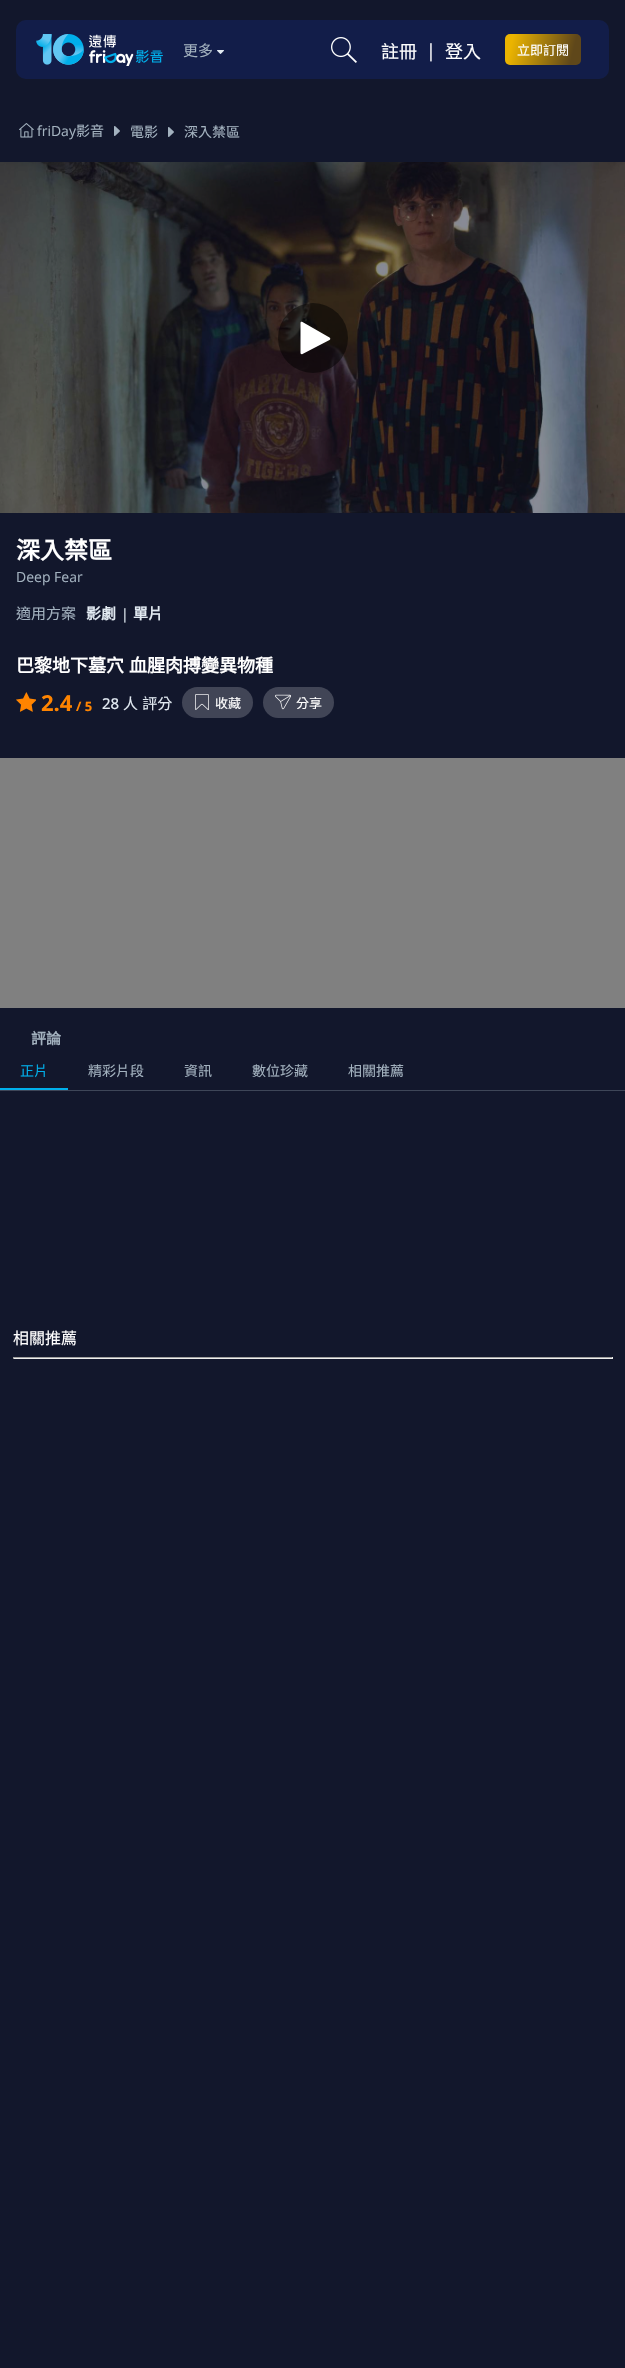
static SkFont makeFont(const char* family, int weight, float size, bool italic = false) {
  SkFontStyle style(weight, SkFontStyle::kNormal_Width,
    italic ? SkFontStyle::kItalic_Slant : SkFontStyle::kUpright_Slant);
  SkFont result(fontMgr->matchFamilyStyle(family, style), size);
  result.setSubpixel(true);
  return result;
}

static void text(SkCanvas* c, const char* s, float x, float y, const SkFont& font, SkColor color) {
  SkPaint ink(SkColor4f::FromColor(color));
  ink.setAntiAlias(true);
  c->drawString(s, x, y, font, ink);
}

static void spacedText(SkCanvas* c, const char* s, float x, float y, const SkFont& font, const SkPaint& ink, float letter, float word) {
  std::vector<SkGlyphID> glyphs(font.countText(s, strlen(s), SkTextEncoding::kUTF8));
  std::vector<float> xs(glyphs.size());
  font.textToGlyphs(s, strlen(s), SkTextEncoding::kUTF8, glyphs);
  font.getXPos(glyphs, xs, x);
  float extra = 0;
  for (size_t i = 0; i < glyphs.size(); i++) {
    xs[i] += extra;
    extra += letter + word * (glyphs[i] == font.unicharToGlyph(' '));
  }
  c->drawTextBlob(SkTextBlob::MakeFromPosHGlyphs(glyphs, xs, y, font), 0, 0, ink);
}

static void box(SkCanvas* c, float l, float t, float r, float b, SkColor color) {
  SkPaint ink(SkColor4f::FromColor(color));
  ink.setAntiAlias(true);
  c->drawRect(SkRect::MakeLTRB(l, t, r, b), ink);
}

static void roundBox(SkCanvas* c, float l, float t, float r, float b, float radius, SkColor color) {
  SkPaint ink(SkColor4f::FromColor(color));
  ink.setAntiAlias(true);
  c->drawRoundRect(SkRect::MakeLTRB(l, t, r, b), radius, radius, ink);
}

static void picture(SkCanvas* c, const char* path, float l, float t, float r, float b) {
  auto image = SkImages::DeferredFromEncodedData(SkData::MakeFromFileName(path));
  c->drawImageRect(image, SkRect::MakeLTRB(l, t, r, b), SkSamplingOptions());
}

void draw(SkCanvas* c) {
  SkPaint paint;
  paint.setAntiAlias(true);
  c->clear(0xff12172c);
  roundBox(c, 16, 20, 609, 79, 10, 0xff121d49);
  picture(c, "img_01.png", 36, 34, 163, 66);
  SkFont face1 = makeFont("Noto Sans CJK TC", 400, 15);
  text(c, "更多", 183, 56, face1, 0xffa3b2bf);
  picture(c, "img_02.png", 217, 50, 224, 54);
  picture(c, "img_03.png", 331, 37, 357, 63);
  SkFont face2 = makeFont("Noto Sans CJK TC", 400, 18);
  text(c, "註冊", 381, 58, face2, 0xffffffff);
  SkFont face3 = makeFont("Open Sans", 400, 18);
  text(c, "|", 426, 57, face3, 0xffffffff);
  text(c, "登入", 445, 58, face2, 0xffffffff);
  {
    const SkColor colors[] = {0xffebb400, 0xff5f471a};
    const float stops[] = {0.1f, 0.87f};
    const SkPoint ends[] = {{504, 40}, {582, 59}};
    paint.setShader(SkGradientShader::MakeLinear(ends, colors, stops, 2, SkTileMode::kClamp));
    paint.setAlpha(255);
  }
  c->drawRoundRect(SkRect::MakeLTRB(505, 34, 581, 65), 5, 5, paint);
  SkFont face4 = makeFont("Noto Sans CJK TC", 400, 13);
  text(c, "立即訂閱", 517, 55, face4, 0xffffffff);
  picture(c, "img_04.png", 19, 123, 34, 138);
  SkFont face5 = makeFont("Open Sans", 400, 14);
  text(c, "friDay", 37, 136, face5, 0xffa3b2bf);
  SkFont face6 = makeFont("Noto Sans CJK TC", 400, 14);
  text(c, "影音", 76, 136, face6, 0xffa3b2bf);
  picture(c, "img_05.png", 114, 126, 120, 136);
  text(c, "電影", 130, 137, face6, 0xffa3b2bf);
  picture(c, "img_05.png", 168, 127, 174, 137);
  text(c, "深入禁區", 184, 137, face6, 0xffa3b2bf);
  picture(c, "img_06.png", 0, 162, 625, 513);
  paint.setShader(nullptr);
  paint.setColor(0x80000000);
  c->drawCircle(313, 338, 35, paint);
  paint.setColor(0xffffffff);
  c->drawPath(SkPathBuilder(SkPathFillType::kEvenOdd).moveTo(302.5f, 354).cubicTo(301.5f, 354.5f, 300.5f, 354, 300.5f, 353).lineTo(300.5f, 323).cubicTo(300.5f, 322, 301.5f, 321.5f, 302.5f, 322).lineTo(329.5f, 337.5f).cubicTo(330.5f, 338, 330.5f, 339.5f, 329.5f, 340).close().detach(), paint);
  SkFont face7 = makeFont("Noto Sans CJK TC", 700, 24);
  text(c, "深入禁區", 16, 559, face7, 0xffffffff);
  text(c, "Deep Fear", 16, 582, face5, 0xffa3b2bf);
  text(c, "適用方案", 16, 619, face1, 0xffa3b2bf);
  SkFont face8 = makeFont("Noto Sans CJK TC", 700, 15);
  text(c, "影劇", 86, 619, face8, 0xffe2eaf2);
  text(c, "|", 121, 619, face5, 0xffe2eaf2);
  text(c, "單片", 133, 619, face8, 0xffe2eaf2);
  SkFont face9 = makeFont("Noto Sans CJK TC", 700, 18);
  spacedText(c, "巴黎地下墓穴 血腥肉搏變異物種", 16, 672, face9, paint, 0, 1);
  picture(c, "img_07.png", 16, 692, 36, 712);
  SkFont face10 = makeFont("Open Sans", 700, 22);
  text(c, "2.4", 41, 711, face10, 0xffff8400);
  SkFont face11 = makeFont("Open Sans", 700, 13);
  text(c, "/ 5", 76, 711, face11, 0xffff8400);
  SkFont face12 = makeFont("Open Sans", 500, 15);
  text(c, "28", 102, 709, face12, 0xffe2eaf2);
  paint.setColor(0xffe2eaf2);
  spacedText(c, "人 評分", 123, 709, face1, paint, 0, 1);
  roundBox(c, 182, 687, 253, 718, 15.5f, 0xff414556);
  picture(c, "img_08.png", 195, 694, 209, 710);
  text(c, "收藏", 215, 708, face4, 0xffffffff);
  roundBox(c, 263, 687, 334, 718, 15.5f, 0xff414556);
  picture(c, "img_09.png", 275, 694, 291, 710);
  text(c, "分享", 296, 708, face4, 0xffffffff);
  box(c, 0, 758, 625, 1008, 0xff808080);
  text(c, "評論", 31, 1044, face8, 0xffa3b2bf);
  box(c, 0, 1090, 625, 1091, 0xff3e4658);
  box(c, 0, 1088, 68, 1090, 0xff00afeb);
  text(c, "正片", 20, 1076, face6, 0xff00afeb);
  text(c, "精彩片段", 88, 1076, face6, 0xffa3b2bf);
  text(c, "資訊", 184, 1076, face6, 0xffa3b2bf);
  text(c, "數位珍藏", 252, 1076, face6, 0xffa3b2bf);
  text(c, "相關推薦", 348, 1076, face6, 0xffa3b2bf);
  SkFont face13 = makeFont("Noto Sans CJK TC", 400, 16);
  text(c, "相關推薦", 13, 1344, face13, 0xffffffff);
  box(c, 13, 1357, 613, 1358, 0xff9f9f9f);
  box(c, 612, 1357, 613, 1359, 0xffeeeeee);
  box(c, 13, 1358, 613, 1359, 0xffeeeeee);
  box(c, 13, 1357, 14, 1359, 0xff9f9f9f);
}
